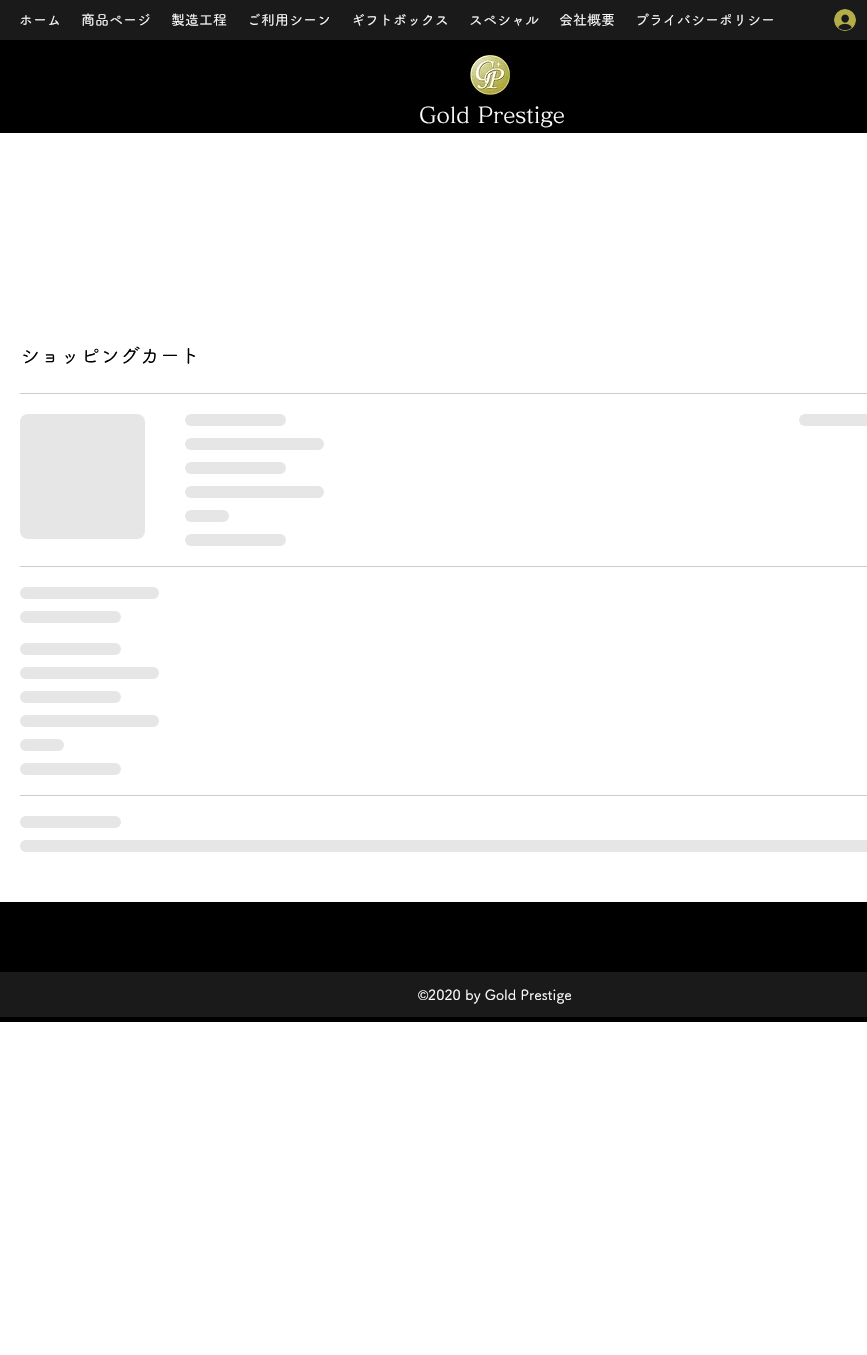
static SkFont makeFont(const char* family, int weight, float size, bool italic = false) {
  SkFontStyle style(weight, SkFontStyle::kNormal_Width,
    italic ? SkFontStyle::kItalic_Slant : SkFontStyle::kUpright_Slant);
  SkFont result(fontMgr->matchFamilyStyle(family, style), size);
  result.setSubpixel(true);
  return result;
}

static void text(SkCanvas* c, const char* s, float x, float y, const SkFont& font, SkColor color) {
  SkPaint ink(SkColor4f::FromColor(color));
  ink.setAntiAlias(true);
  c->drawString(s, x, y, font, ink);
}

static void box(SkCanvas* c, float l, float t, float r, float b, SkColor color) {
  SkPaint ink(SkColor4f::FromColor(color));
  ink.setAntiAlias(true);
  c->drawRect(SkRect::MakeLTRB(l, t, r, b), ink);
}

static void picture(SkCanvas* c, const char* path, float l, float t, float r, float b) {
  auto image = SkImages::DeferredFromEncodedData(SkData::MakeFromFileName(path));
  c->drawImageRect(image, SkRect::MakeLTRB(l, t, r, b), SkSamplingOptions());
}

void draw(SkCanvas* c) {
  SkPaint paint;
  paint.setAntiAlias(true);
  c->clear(0xffffffff);
  box(c, 0, 0, 867, 40, 0xff1a1a1a);
  SkFont face1 = makeFont("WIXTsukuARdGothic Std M", 500, 14);
  text(c, "ホーム", 19, 25, face1, 0xffffffff);
  text(c, "商品ページ", 81, 25, face1, 0xffffffff);
  text(c, "製造工程", 171, 25, face1, 0xffffffff);
  text(c, "ご利用シーン", 247, 25, face1, 0xffffffff);
  text(c, "ギフトボックス", 351, 25, face1, 0xffffffff);
  text(c, "スペシャル", 469, 25, face1, 0xffffffff);
  text(c, "会社概要", 559, 25, face1, 0xffffffff);
  text(c, "プライバシーポリシー", 635, 25, face1, 0xffffffff);
  picture(c, "img_01.png", 834, 9, 856, 31);
  box(c, 0, 40, 867, 133, 0xff000000);
  picture(c, "img_02.png", 470, 55, 510, 95);
  SkFont face2 = makeFont("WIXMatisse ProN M", 500, 22);
  text(c, "Gold Prestige", 419, 123, face2, 0xffffffff);
  box(c, 20, 393, 867, 394, 0xffcccccc);
  SkFont face3 = makeFont("WIXTsukuARdGothic Std M", 500, 20);
  text(c, "ショッピングカート", 20, 363, face3, 0xff000000);
  {
    const SkColor colors[] = {0xffe6e6e6, 0xffcccccc, 0xffe6e6e6};
    const float stops[] = {0.25f, 0.37f, 0.63f};
    const SkPoint ends[] = {{20, 477}, {520, 477}};
    paint.setShader(SkGradientShader::MakeLinear(ends, colors, stops, 3, SkTileMode::kClamp));
    paint.setAlpha(255);
  }
  c->drawRoundRect(SkRect::MakeLTRB(20, 414, 145, 539), 8, 8, paint);
  {
    const SkColor colors[] = {0xffe6e6e6, 0xffcccccc, 0xffe6e6e6};
    const float stops[] = {0.25f, 0.37f, 0.63f};
    const SkPoint ends[] = {{185, 420}, {589, 420}};
    paint.setShader(SkGradientShader::MakeLinear(ends, colors, stops, 3, SkTileMode::kClamp));
    paint.setAlpha(255);
  }
  c->drawRoundRect(SkRect::MakeLTRB(185, 414, 286, 426), 6, 6, paint);
  {
    const SkColor colors[] = {0xffe6e6e6, 0xffcccccc, 0xffe6e6e6};
    const float stops[] = {0.25f, 0.37f, 0.63f};
    const SkPoint ends[] = {{185, 444}, {741, 444}};
    paint.setShader(SkGradientShader::MakeLinear(ends, colors, stops, 3, SkTileMode::kClamp));
    paint.setAlpha(255);
  }
  c->drawRoundRect(SkRect::MakeLTRB(185, 438, 324, 450), 6, 6, paint);
  {
    const SkColor colors[] = {0xffe6e6e6, 0xffcccccc, 0xffe6e6e6};
    const float stops[] = {0.25f, 0.37f, 0.63f};
    const SkPoint ends[] = {{185, 468}, {589, 468}};
    paint.setShader(SkGradientShader::MakeLinear(ends, colors, stops, 3, SkTileMode::kClamp));
    paint.setAlpha(255);
  }
  c->drawRoundRect(SkRect::MakeLTRB(185, 462, 286, 474), 6, 6, paint);
  {
    const SkColor colors[] = {0xffe6e6e6, 0xffcccccc, 0xffe6e6e6};
    const float stops[] = {0.25f, 0.37f, 0.63f};
    const SkPoint ends[] = {{185, 492}, {741, 492}};
    paint.setShader(SkGradientShader::MakeLinear(ends, colors, stops, 3, SkTileMode::kClamp));
    paint.setAlpha(255);
  }
  c->drawRoundRect(SkRect::MakeLTRB(185, 486, 324, 498), 6, 6, paint);
  {
    const SkColor colors[] = {0xffe6e6e6, 0xffcccccc, 0xffe6e6e6};
    const float stops[] = {0.25f, 0.37f, 0.63f};
    const SkPoint ends[] = {{185, 516}, {361, 516}};
    paint.setShader(SkGradientShader::MakeLinear(ends, colors, stops, 3, SkTileMode::kClamp));
    paint.setAlpha(255);
  }
  c->drawRoundRect(SkRect::MakeLTRB(185, 510, 229, 522), 6, 6, paint);
  {
    const SkColor colors[] = {0xffe6e6e6, 0xffcccccc, 0xffe6e6e6};
    const float stops[] = {0.25f, 0.37f, 0.63f};
    const SkPoint ends[] = {{185, 540}, {589, 540}};
    paint.setShader(SkGradientShader::MakeLinear(ends, colors, stops, 3, SkTileMode::kClamp));
    paint.setAlpha(255);
  }
  c->drawRoundRect(SkRect::MakeLTRB(185, 534, 286, 546), 6, 6, paint);
  {
    const SkColor colors[] = {0xffe6e6e6, 0xffcccccc, 0xffe6e6e6};
    const float stops[] = {0.25f, 0.37f, 0.63f};
    const SkPoint ends[] = {{799, 420}, {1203, 420}};
    paint.setShader(SkGradientShader::MakeLinear(ends, colors, stops, 3, SkTileMode::kClamp));
    paint.setAlpha(255);
  }
  c->drawRoundRect(SkRect::MakeLTRB(799, 414, 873, 426), 6, 6, paint);
  box(c, 20, 566, 867, 567, 0xffcccccc);
  {
    const SkColor colors[] = {0xffe6e6e6, 0xffcccccc, 0xffe6e6e6};
    const float stops[] = {0.25f, 0.37f, 0.63f};
    const SkPoint ends[] = {{20, 593}, {576, 593}};
    paint.setShader(SkGradientShader::MakeLinear(ends, colors, stops, 3, SkTileMode::kClamp));
    paint.setAlpha(255);
  }
  c->drawRoundRect(SkRect::MakeLTRB(20, 587, 159, 599), 6, 6, paint);
  {
    const SkColor colors[] = {0xffe6e6e6, 0xffcccccc, 0xffe6e6e6};
    const float stops[] = {0.25f, 0.37f, 0.63f};
    const SkPoint ends[] = {{20, 617}, {424, 617}};
    paint.setShader(SkGradientShader::MakeLinear(ends, colors, stops, 3, SkTileMode::kClamp));
    paint.setAlpha(255);
  }
  c->drawRoundRect(SkRect::MakeLTRB(20, 611, 121, 623), 6, 6, paint);
  {
    const SkColor colors[] = {0xffe6e6e6, 0xffcccccc, 0xffe6e6e6};
    const float stops[] = {0.25f, 0.37f, 0.63f};
    const SkPoint ends[] = {{20, 649}, {424, 649}};
    paint.setShader(SkGradientShader::MakeLinear(ends, colors, stops, 3, SkTileMode::kClamp));
    paint.setAlpha(255);
  }
  c->drawRoundRect(SkRect::MakeLTRB(20, 643, 121, 655), 6, 6, paint);
  {
    const SkColor colors[] = {0xffe6e6e6, 0xffcccccc, 0xffe6e6e6};
    const float stops[] = {0.25f, 0.37f, 0.63f};
    const SkPoint ends[] = {{20, 673}, {576, 673}};
    paint.setShader(SkGradientShader::MakeLinear(ends, colors, stops, 3, SkTileMode::kClamp));
    paint.setAlpha(255);
  }
  c->drawRoundRect(SkRect::MakeLTRB(20, 667, 159, 679), 6, 6, paint);
  {
    const SkColor colors[] = {0xffe6e6e6, 0xffcccccc, 0xffe6e6e6};
    const float stops[] = {0.25f, 0.37f, 0.63f};
    const SkPoint ends[] = {{20, 697}, {424, 697}};
    paint.setShader(SkGradientShader::MakeLinear(ends, colors, stops, 3, SkTileMode::kClamp));
    paint.setAlpha(255);
  }
  c->drawRoundRect(SkRect::MakeLTRB(20, 691, 121, 703), 6, 6, paint);
  {
    const SkColor colors[] = {0xffe6e6e6, 0xffcccccc, 0xffe6e6e6};
    const float stops[] = {0.25f, 0.37f, 0.63f};
    const SkPoint ends[] = {{20, 721}, {576, 721}};
    paint.setShader(SkGradientShader::MakeLinear(ends, colors, stops, 3, SkTileMode::kClamp));
    paint.setAlpha(255);
  }
  c->drawRoundRect(SkRect::MakeLTRB(20, 715, 159, 727), 6, 6, paint);
  {
    const SkColor colors[] = {0xffe6e6e6, 0xffcccccc, 0xffe6e6e6};
    const float stops[] = {0.25f, 0.37f, 0.63f};
    const SkPoint ends[] = {{20, 745}, {196, 745}};
    paint.setShader(SkGradientShader::MakeLinear(ends, colors, stops, 3, SkTileMode::kClamp));
    paint.setAlpha(255);
  }
  c->drawRoundRect(SkRect::MakeLTRB(20, 739, 64, 751), 6, 6, paint);
  {
    const SkColor colors[] = {0xffe6e6e6, 0xffcccccc, 0xffe6e6e6};
    const float stops[] = {0.25f, 0.37f, 0.63f};
    const SkPoint ends[] = {{20, 769}, {424, 769}};
    paint.setShader(SkGradientShader::MakeLinear(ends, colors, stops, 3, SkTileMode::kClamp));
    paint.setAlpha(255);
  }
  c->drawRoundRect(SkRect::MakeLTRB(20, 763, 121, 775), 6, 6, paint);
  box(c, 20, 795, 867, 796, 0xffcccccc);
  {
    const SkColor colors[] = {0xffe6e6e6, 0xffcccccc, 0xffe6e6e6};
    const float stops[] = {0.25f, 0.37f, 0.63f};
    const SkPoint ends[] = {{20, 822}, {424, 822}};
    paint.setShader(SkGradientShader::MakeLinear(ends, colors, stops, 3, SkTileMode::kClamp));
    paint.setAlpha(255);
  }
  c->drawRoundRect(SkRect::MakeLTRB(20, 816, 121, 828), 6, 6, paint);
  {
    const SkColor colors[] = {0xffe6e6e6, 0xffcccccc, 0xffe6e6e6};
    const float stops[] = {0.25f, 0.37f, 0.63f};
    const SkPoint ends[] = {{20, 846}, {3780, 846}};
    paint.setShader(SkGradientShader::MakeLinear(ends, colors, stops, 3, SkTileMode::kClamp));
    paint.setAlpha(255);
  }
  c->drawRoundRect(SkRect::MakeLTRB(20, 840, 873, 852), 6, 6, paint);
  box(c, 0, 902, 867, 1022, 0xff000000);
  box(c, 0, 972, 867, 1017, 0xff1a1a1a);
  SkFont face4 = makeFont("Liberation Sans", 400, 14);
  text(c, "©", 418, 1000, face4, 0xffffffff);
  text(c, "2020 by Gold Prestige", 428, 1000, face1, 0xffffffff);
}
